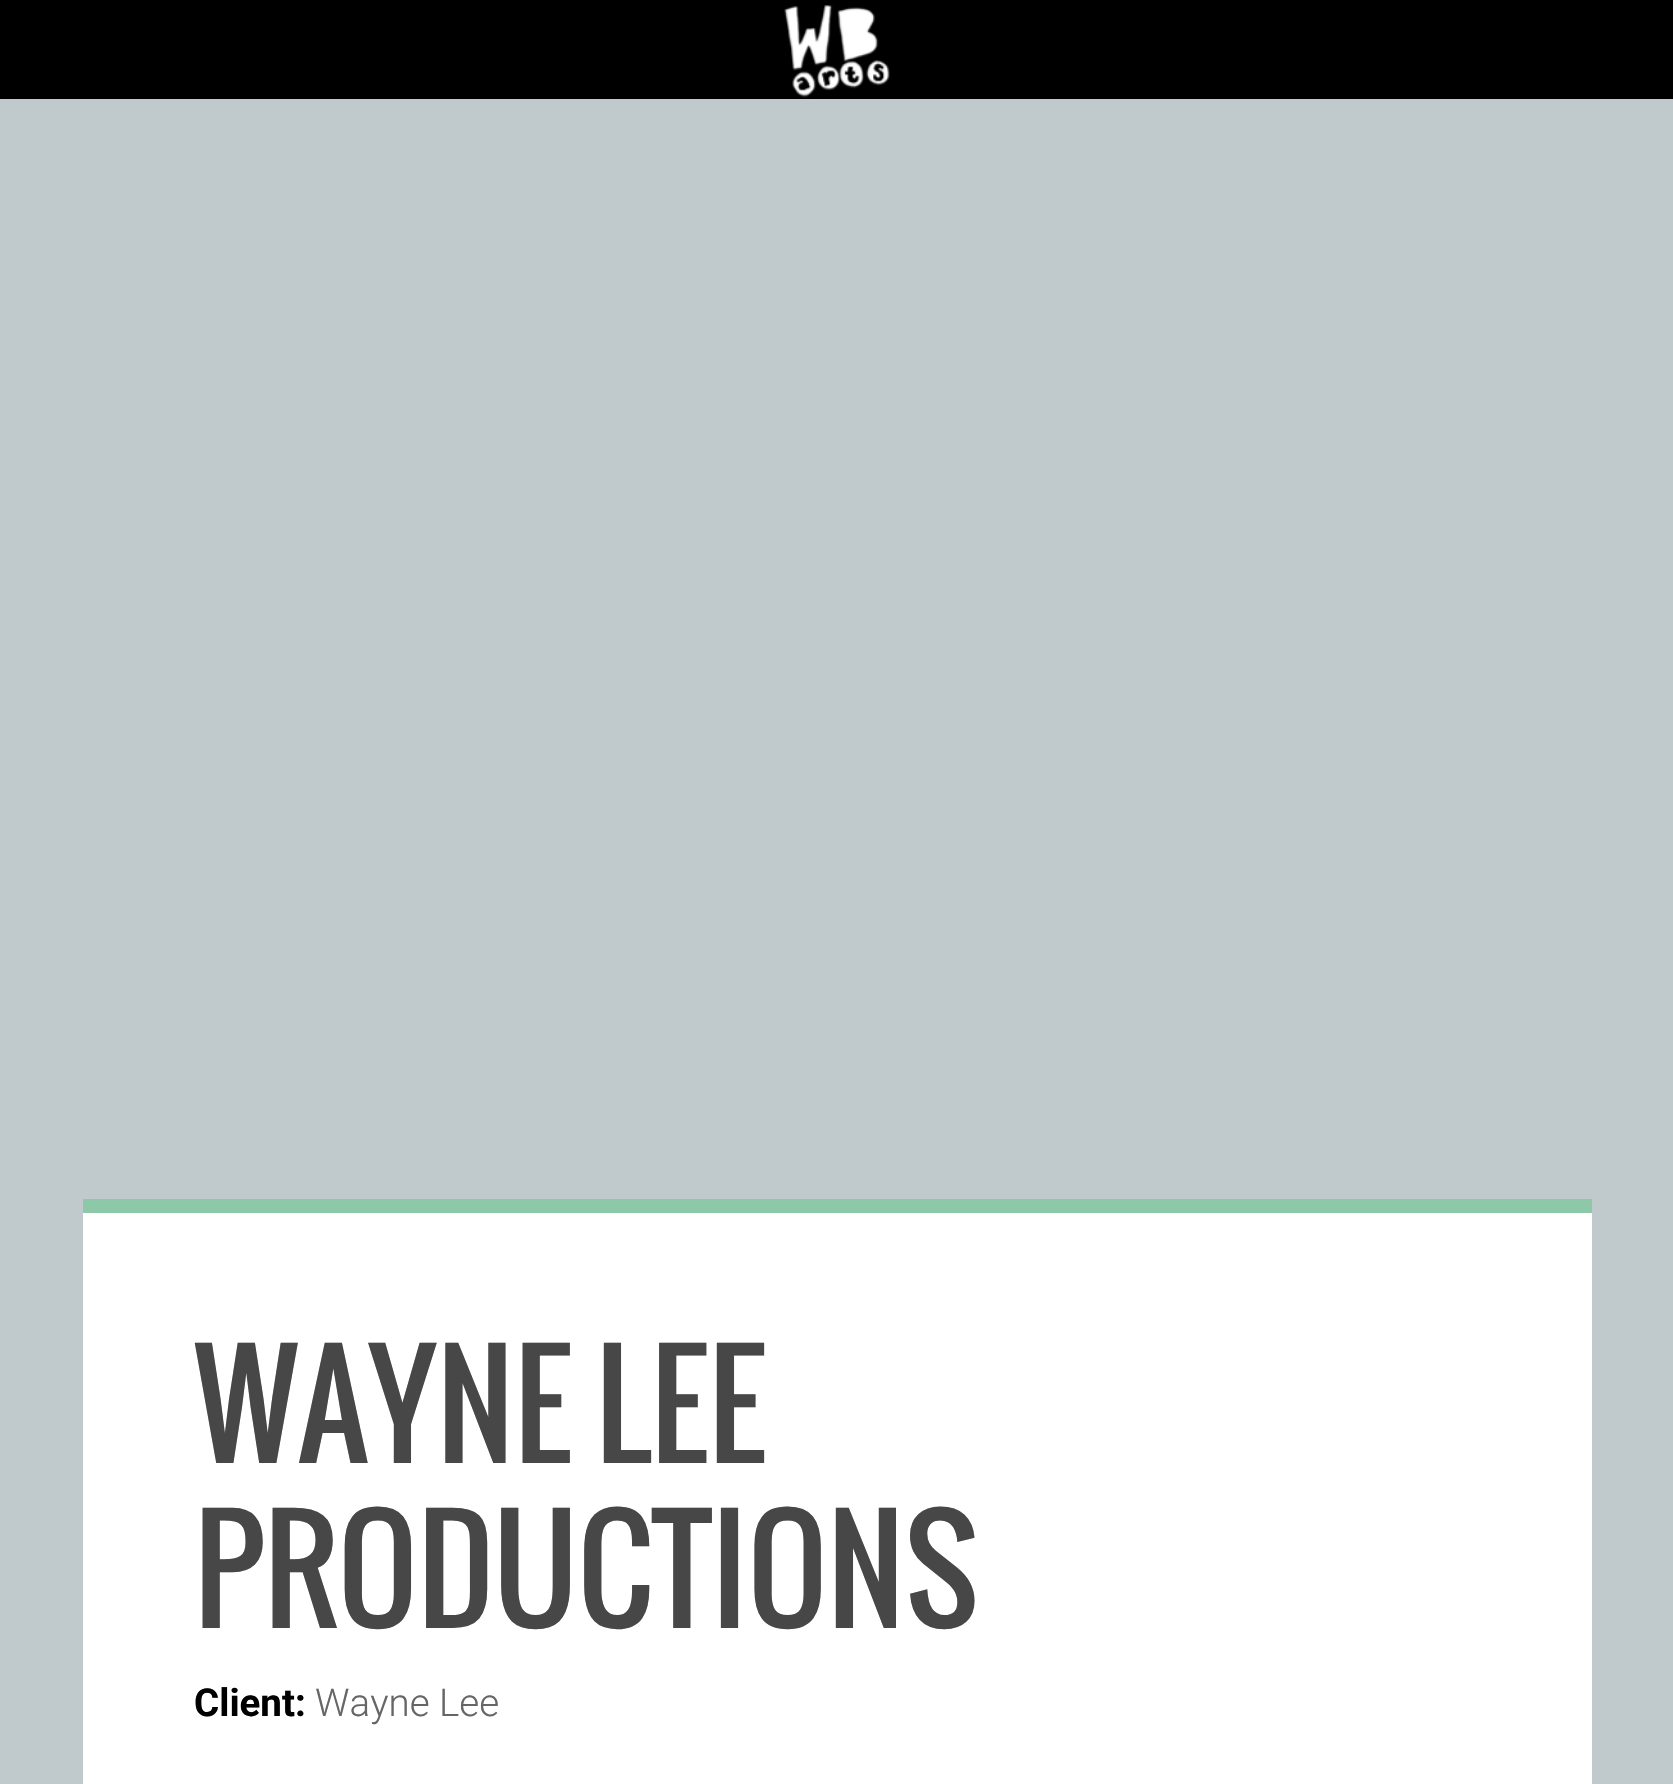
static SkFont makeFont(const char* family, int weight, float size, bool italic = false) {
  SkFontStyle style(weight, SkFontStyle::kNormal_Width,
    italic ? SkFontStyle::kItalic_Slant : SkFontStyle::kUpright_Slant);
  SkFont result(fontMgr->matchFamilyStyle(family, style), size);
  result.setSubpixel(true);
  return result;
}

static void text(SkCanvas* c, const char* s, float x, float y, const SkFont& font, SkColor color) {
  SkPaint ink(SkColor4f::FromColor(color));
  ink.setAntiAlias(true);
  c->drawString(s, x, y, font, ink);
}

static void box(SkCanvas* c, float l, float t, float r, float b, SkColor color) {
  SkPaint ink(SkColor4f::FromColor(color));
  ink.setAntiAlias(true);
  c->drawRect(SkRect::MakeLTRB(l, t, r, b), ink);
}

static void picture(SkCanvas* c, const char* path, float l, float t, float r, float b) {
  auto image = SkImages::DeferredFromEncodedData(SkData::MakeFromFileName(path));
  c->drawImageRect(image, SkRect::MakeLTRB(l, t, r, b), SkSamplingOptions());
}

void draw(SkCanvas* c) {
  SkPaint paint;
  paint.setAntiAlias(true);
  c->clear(0xffc0c9cc);
  box(c, 0, 0, 1673, 99, 0xff000000);
  picture(c, "img_01.png", 784, 5, 890, 98);
  box(c, 83, 1199, 1592, 1213, 0xff8dc8a8);
  box(c, 83, 1213, 1592, 1784, 0xffffffff);
  SkFont face1 = makeFont("Oswald", 400, 137.5f);
  text(c, "WAYNE LEE", 194, 1463, face1, 0xff474747);
  text(c, "PRODUCTIONS", 194, 1628, face1, 0xff474747);
  SkFont face2 = makeFont("Roboto", 700, 38.5f);
  text(c, "Client:", 194, 1716, face2, 0xff000000);
  SkFont face3 = makeFont("Roboto", 300, 38.5f);
  text(c, "Wayne Lee", 315, 1716, face3, 0xff666666);
}
